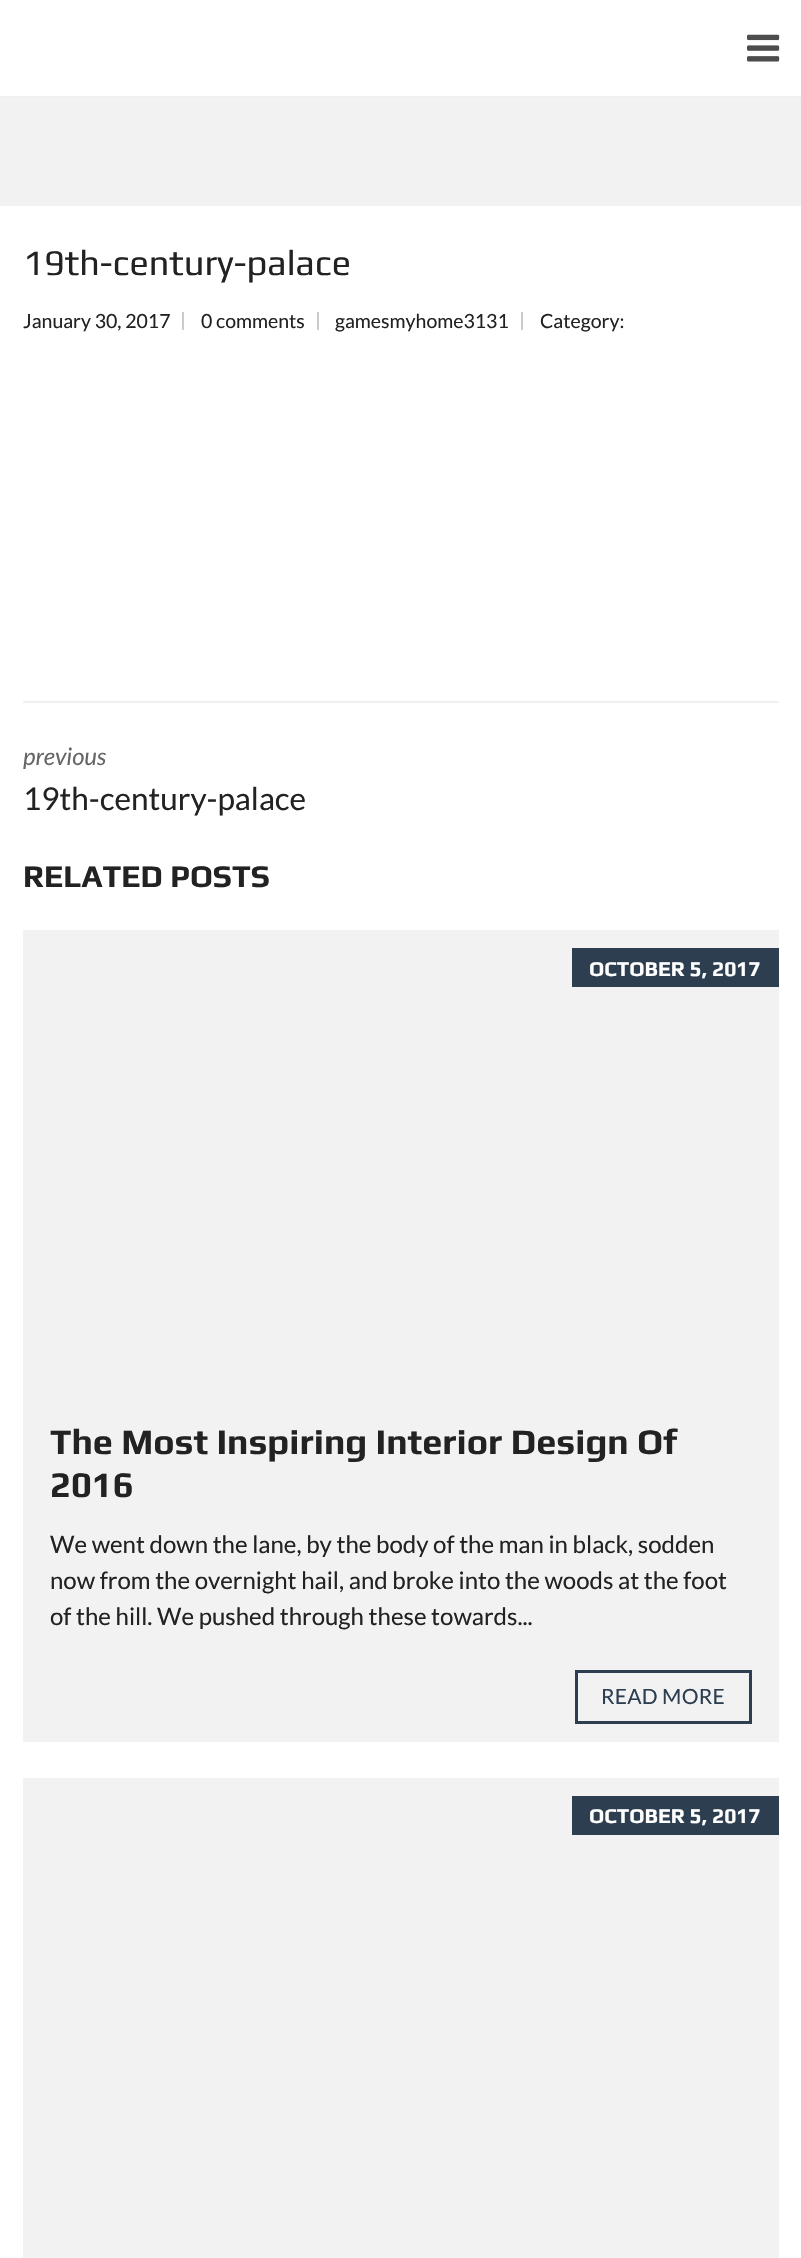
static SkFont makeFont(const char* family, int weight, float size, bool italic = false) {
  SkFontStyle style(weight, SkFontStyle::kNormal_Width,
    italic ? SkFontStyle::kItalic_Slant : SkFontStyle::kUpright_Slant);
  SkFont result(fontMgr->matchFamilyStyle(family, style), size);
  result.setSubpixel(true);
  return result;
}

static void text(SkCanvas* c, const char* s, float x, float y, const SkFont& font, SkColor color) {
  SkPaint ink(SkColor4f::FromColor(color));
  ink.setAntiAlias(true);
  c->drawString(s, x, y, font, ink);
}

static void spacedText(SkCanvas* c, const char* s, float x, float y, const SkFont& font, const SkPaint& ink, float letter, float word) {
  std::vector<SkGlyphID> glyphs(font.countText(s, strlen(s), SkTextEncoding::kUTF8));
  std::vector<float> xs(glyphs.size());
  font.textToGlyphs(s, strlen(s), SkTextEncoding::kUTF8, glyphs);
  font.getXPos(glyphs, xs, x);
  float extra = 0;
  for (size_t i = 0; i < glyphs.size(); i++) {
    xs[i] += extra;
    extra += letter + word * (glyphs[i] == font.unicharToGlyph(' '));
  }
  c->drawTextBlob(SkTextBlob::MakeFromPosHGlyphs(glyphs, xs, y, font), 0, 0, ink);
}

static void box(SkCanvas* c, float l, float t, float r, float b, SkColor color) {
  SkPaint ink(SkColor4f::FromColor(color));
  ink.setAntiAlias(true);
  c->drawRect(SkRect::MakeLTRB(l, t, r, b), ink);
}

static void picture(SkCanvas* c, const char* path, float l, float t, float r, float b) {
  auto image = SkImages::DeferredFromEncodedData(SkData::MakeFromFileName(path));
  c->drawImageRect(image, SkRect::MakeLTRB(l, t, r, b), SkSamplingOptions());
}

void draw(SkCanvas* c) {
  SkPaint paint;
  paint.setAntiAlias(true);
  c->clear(0xffffffff);
  picture(c, "img_01.png", 747, 34, 780, 62);
  box(c, 0, 96, 801, 98, 0xfff0f0f0);
  box(c, 0, 98, 801, 206, 0xfff2f2f2);
  SkFont face1 = makeFont("Play", 400, 36);
  text(c, "19th-century-palace", 23, 275, face1, 0xff222222);
  SkFont face2 = makeFont("Lato", 400, 19.5f);
  text(c, "January 30, 2017", 23, 328, face2, 0xff222222);
  box(c, 182, 312, 184, 330, 0xffcccccc);
  text(c, "0 comments", 201, 328, face2, 0xff222222);
  box(c, 317, 312, 319, 330, 0xffcccccc);
  text(c, "gamesmyhome3131", 335, 328, face2, 0xff222222);
  box(c, 521, 312, 523, 330, 0xffcccccc);
  text(c, "Category:", 540, 328, face2, 0xff222222);
  box(c, 23, 701, 779, 703, 0xfff0f0f0);
  SkFont face3 = makeFont("Lato", 400, 24, true);
  text(c, "previous", 23, 765, face3, 0xff666666);
  SkFont face4 = makeFont("Lato", 400, 31.5f);
  text(c, "19th-century-palace", 23, 810, face4, 0xff222222);
  SkFont face5 = makeFont("Play", 700, 31.5f);
  text(c, "RELATED POSTS", 23, 887, face5, 0xff222222);
  box(c, 23, 930, 779, 1742, 0xfff2f2f2);
  box(c, 572, 948, 779, 987, 0xff2c3e50);
  SkFont face6 = makeFont("Play", 700, 21);
  text(c, "OCTOBER 5, 2017", 589, 976, face6, 0xffffffff);
  SkFont face7 = makeFont("Play", 700, 36);
  text(c, "The Most Inspiring Interior Design Of", 50, 1454, face7, 0xff222222);
  text(c, "2016", 50, 1497, face7, 0xff222222);
  SkFont face8 = makeFont("Lato", 400, 24);
  text(c, "We went down the lane, by the body of the man in black, sodden", 50, 1553, face8, 0xff222222);
  text(c, "now from the overnight hail, and broke into the woods at the foot", 50, 1589, face8, 0xff222222);
  text(c, "of the hill. We pushed through these towards...", 50, 1625, face8, 0xff222222);
  paint.setStyle(SkPaint::kStroke_Style);
  paint.setStrokeWidth(3);
  paint.setColor(0xff2c3e50);
  c->drawRect(SkRect::MakeLTRB(576.5f, 1671.5f, 750.5f, 1722.5f), paint);
  SkFont face9 = makeFont("Lato", 400, 21);
  paint.setStyle(SkPaint::kFill_Style);
  spacedText(c, "READ MORE", 601, 1704, face9, paint, 0.25f, 0);
  box(c, 23, 1778, 779, 2258, 0xfff2f2f2);
  box(c, 572, 1796, 779, 1835, 0xff2c3e50);
  text(c, "OCTOBER 5, 2017", 589, 1823, face6, 0xffffffff);
}
